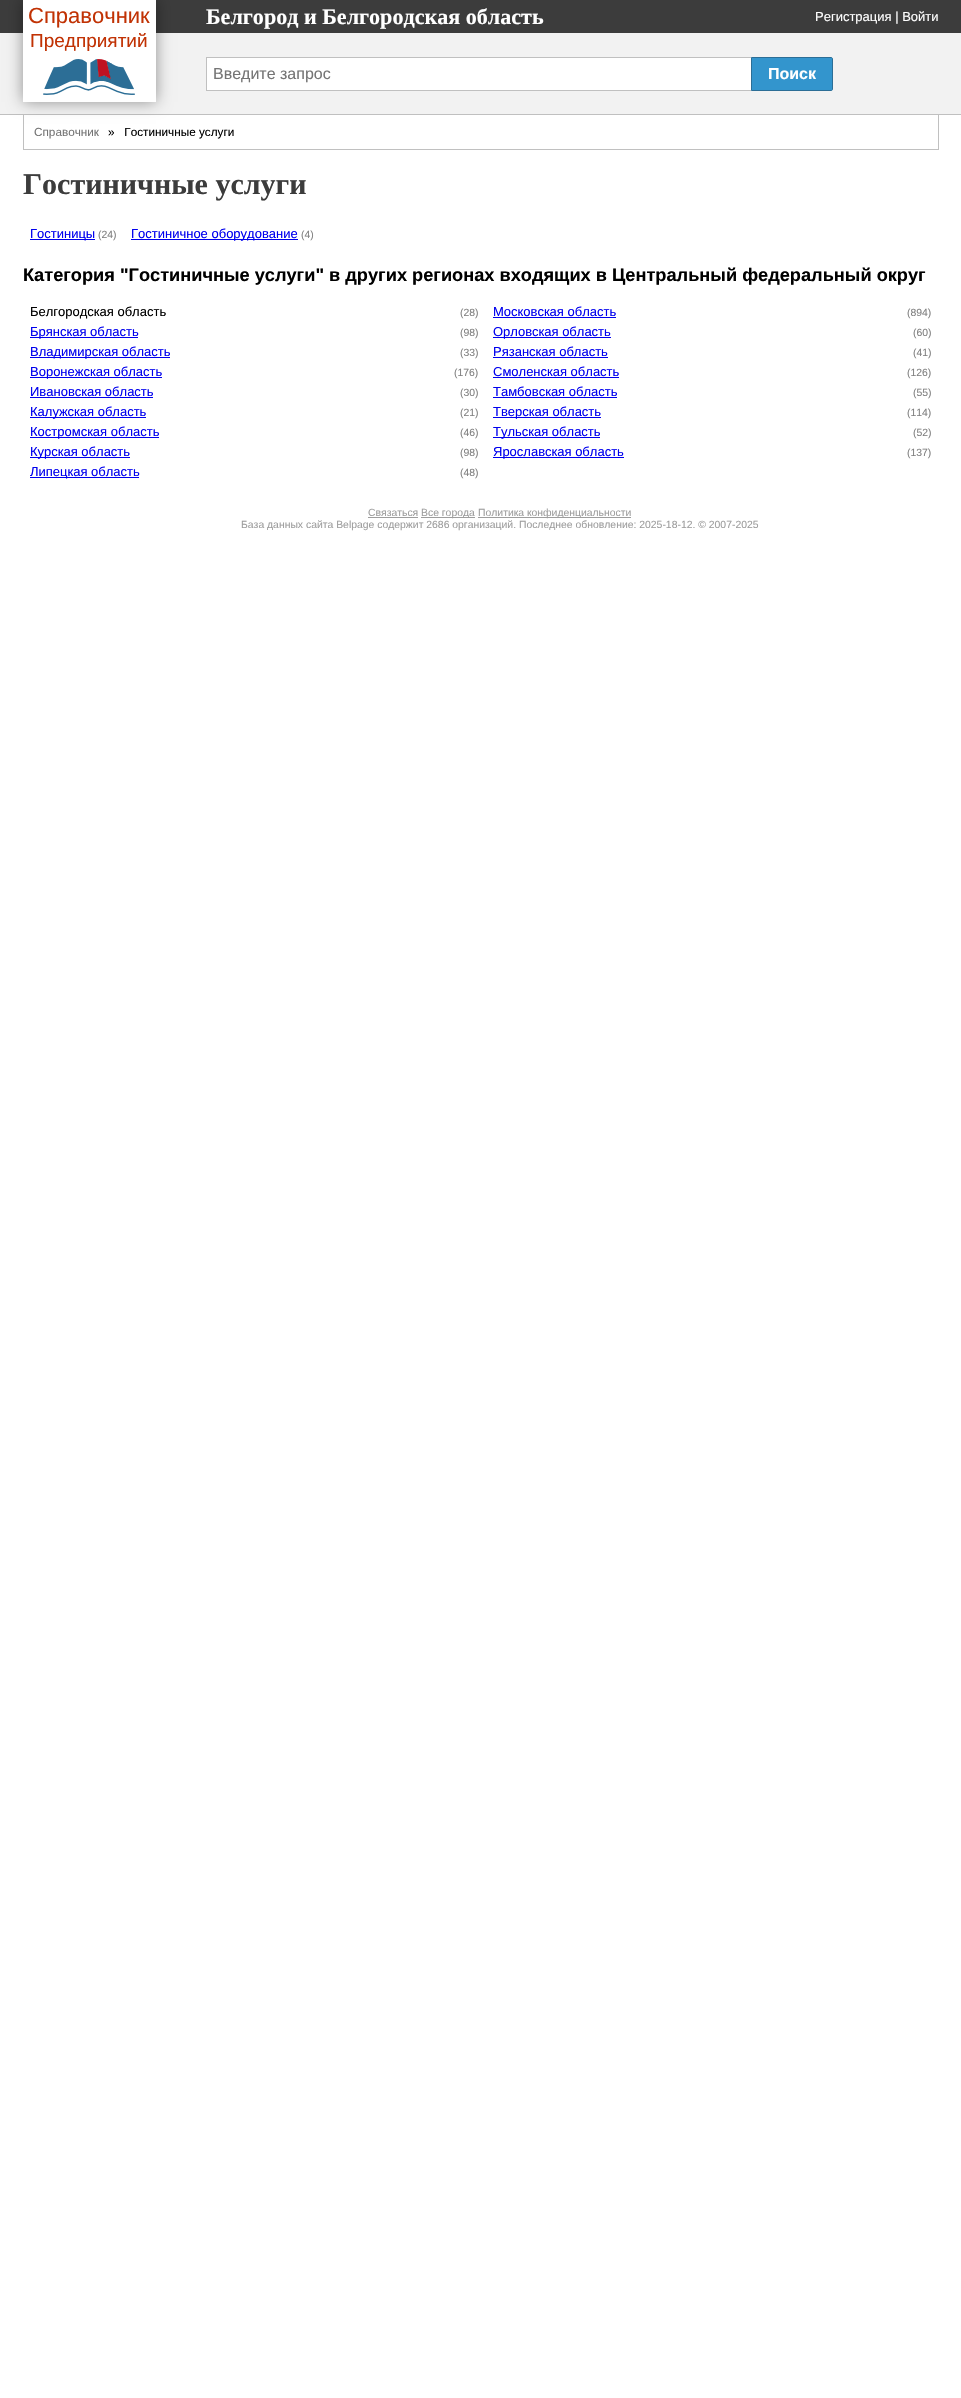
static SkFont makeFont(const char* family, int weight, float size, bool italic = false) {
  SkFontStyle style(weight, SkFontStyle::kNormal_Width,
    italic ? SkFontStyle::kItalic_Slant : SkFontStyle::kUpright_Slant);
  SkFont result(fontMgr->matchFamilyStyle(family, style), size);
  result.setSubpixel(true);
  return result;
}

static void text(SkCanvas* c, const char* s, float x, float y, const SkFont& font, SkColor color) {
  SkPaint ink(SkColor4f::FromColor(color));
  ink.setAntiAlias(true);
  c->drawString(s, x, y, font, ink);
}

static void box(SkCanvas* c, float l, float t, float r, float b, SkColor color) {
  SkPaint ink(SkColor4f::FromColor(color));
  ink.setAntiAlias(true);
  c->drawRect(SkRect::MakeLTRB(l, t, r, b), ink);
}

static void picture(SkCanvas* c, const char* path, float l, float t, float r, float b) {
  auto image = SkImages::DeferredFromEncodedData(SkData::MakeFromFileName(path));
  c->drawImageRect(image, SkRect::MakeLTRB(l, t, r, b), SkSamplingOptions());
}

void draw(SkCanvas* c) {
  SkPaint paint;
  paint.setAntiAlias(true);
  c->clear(0xffffffff);
  box(c, 0, 0, 961, 33, 0xff3c3c3c);
  box(c, 0, 33, 961, 114, 0xfff2f2f2);
  box(c, 0, 114, 961, 115, 0xffc0c0c0);
  box(c, 938, 115, 939, 150, 0xffc0c0c0);
  box(c, 23, 149, 939, 150, 0xffc0c0c0);
  box(c, 23, 115, 24, 150, 0xffc0c0c0);
  paint.setColor(0x66000000);
  paint.setMaskFilter(SkMaskFilter::MakeBlur(kNormal_SkBlurStyle, 7.5f));
  c->drawRect(SkRect::MakeLTRB(23, 0, 156, 102), paint);
  paint.setMaskFilter(nullptr);
  box(c, 23, 0, 156, 102, 0xffffffff);
  SkFont face1 = makeFont("Liberation Sans", 400, 22);
  text(c, "Справочник", 28, 23, face1, 0xffc13204);
  SkFont face2 = makeFont("Liberation Sans", 400, 19);
  text(c, "Предприятий", 30, 47, face2, 0xffc13204);
  picture(c, "img_01.png", 43, 59, 135, 95);
  SkFont face3 = makeFont("Liberation Serif", 700, 22.1f);
  text(c, "Белгород и Белгородская область", 206, 24, face3, 0xffffffff);
  SkFont face4 = makeFont("Liberation Sans", 400, 13);
  text(c, "Регистрация | Войти", 815, 21, face4, 0xffffffff);
  box(c, 207, 58, 751, 90, 0xffffffff);
  box(c, 206, 57, 751, 58, 0xffc0c0c0);
  box(c, 206, 90, 751, 91, 0xffc0c0c0);
  box(c, 206, 57, 207, 91, 0xffc0c0c0);
  SkFont face5 = makeFont("Liberation Sans", 400, 16);
  text(c, "Введите запрос", 213, 79, face5, 0xff757575);
  paint.setColor(0xff3395cd);
  c->drawPath(SkPathBuilder().moveTo(751.5f, 57.5f).lineTo(831, 57.5f).cubicTo(832, 57.5f, 832.5f, 58, 832.5f, 59).lineTo(832.5f, 89).cubicTo(832.5f, 90, 832, 90.5f, 831, 90.5f).lineTo(751.5f, 90.5f).close().detach(), paint);
  paint.setStyle(SkPaint::kStroke_Style);
  paint.setStrokeWidth(1);
  paint.setColor(0xff2c6e96);
  c->drawPath(SkPathBuilder().moveTo(751.5f, 57.5f).lineTo(831, 57.5f).cubicTo(832, 57.5f, 832.5f, 58, 832.5f, 59).lineTo(832.5f, 89).cubicTo(832.5f, 90, 832, 90.5f, 831, 90.5f).lineTo(751.5f, 90.5f).close().detach(), paint);
  SkFont face6 = makeFont("Liberation Sans", 700, 16);
  text(c, "Поиск", 768, 79, face6, 0xffffffff);
  SkFont face7 = makeFont("Liberation Sans", 400, 11.75f);
  text(c, "Справочник", 34, 136, face7, 0xff757575);
  text(c, "»   Гостиничные услуги", 108, 136, face7, 0xff000000);
  SkFont face8 = makeFont("Liberation Serif", 700, 30);
  text(c, "Гостиничные услуги", 23, 194, face8, 0xff3c3c3c);
  box(c, 30, 239, 95, 240, 0xff0000ee);
  text(c, "Гостиницы", 30, 238, face4, 0xff0000ee);
  SkFont face9 = makeFont("Liberation Sans", 400, 10.4f);
  text(c, "(24)", 98, 238, face9, 0xff808080);
  box(c, 131, 239, 298, 240, 0xff0000ee);
  text(c, "Гостиничное оборудование", 131, 238, face4, 0xff0000ee);
  text(c, "(4)", 301, 238, face9, 0xff808080);
  SkFont face10 = makeFont("Liberation Sans", 700, 18.2f);
  text(c, "Категория \"Гостиничные услуги\" в других регионах входящих в Центральный федеральный округ", 23, 281, face10, 0xff000000);
  text(c, "Белгородская область", 30, 316, face4, 0xff000000);
  text(c, "(28)", 460, 316, face9, 0xff808080);
  box(c, 30, 337, 138, 338, 0xff0000ee);
  text(c, "Брянская область", 30, 336, face4, 0xff0000ee);
  text(c, "(98)", 460, 336, face9, 0xff808080);
  box(c, 30, 357, 170, 358, 0xff0000ee);
  text(c, "Владимирская область", 30, 356, face4, 0xff0000ee);
  text(c, "(33)", 460, 356, face9, 0xff808080);
  box(c, 30, 377, 162, 378, 0xff0000ee);
  text(c, "Воронежская область", 30, 376, face4, 0xff0000ee);
  text(c, "(176)", 454, 376, face9, 0xff808080);
  text(c, "Ивановская область", 30, 396, face4, 0xff0000ee);
  box(c, 30, 397, 153, 398, 0xff0000ee);
  text(c, "(30)", 460, 396, face9, 0xff808080);
  box(c, 30, 417, 146, 418, 0xff0000ee);
  text(c, "Калужская область", 30, 416, face4, 0xff0000ee);
  text(c, "(21)", 460, 416, face9, 0xff808080);
  box(c, 30, 437, 159, 438, 0xff0000ee);
  text(c, "Костромская область", 30, 436, face4, 0xff0000ee);
  text(c, "(46)", 460, 436, face9, 0xff808080);
  box(c, 30, 457, 130, 458, 0xff0000ee);
  text(c, "Курская область", 30, 456, face4, 0xff0000ee);
  text(c, "(98)", 460, 456, face9, 0xff808080);
  box(c, 30, 477, 139, 478, 0xff0000ee);
  text(c, "Липецкая область", 30, 476, face4, 0xff0000ee);
  text(c, "(48)", 460, 476, face9, 0xff808080);
  text(c, "Московская область", 493, 316, face4, 0xff0000ee);
  box(c, 493, 317, 616, 318, 0xff0000ee);
  text(c, "(894)", 907, 316, face9, 0xff808080);
  box(c, 493, 337, 611, 338, 0xff0000ee);
  text(c, "Орловская область", 493, 336, face4, 0xff0000ee);
  text(c, "(60)", 913, 336, face9, 0xff808080);
  text(c, "Рязанская область", 493, 356, face4, 0xff0000ee);
  box(c, 493, 357, 608, 358, 0xff0000ee);
  text(c, "(41)", 913, 356, face9, 0xff808080);
  text(c, "Смоленская область", 493, 376, face4, 0xff0000ee);
  box(c, 493, 377, 619, 378, 0xff0000ee);
  text(c, "(126)", 907, 376, face9, 0xff808080);
  text(c, "Тамбовская область", 493, 396, face4, 0xff0000ee);
  box(c, 493, 397, 617, 398, 0xff0000ee);
  text(c, "(55)", 913, 396, face9, 0xff808080);
  box(c, 493, 417, 601, 418, 0xff0000ee);
  text(c, "Тверская область", 493, 416, face4, 0xff0000ee);
  text(c, "(114)", 907, 416, face9, 0xff808080);
  box(c, 493, 437, 600, 438, 0xff0000ee);
  text(c, "Тульская область", 493, 436, face4, 0xff0000ee);
  text(c, "(52)", 913, 436, face9, 0xff808080);
  box(c, 493, 457, 624, 458, 0xff0000ee);
  text(c, "Ярославская область", 493, 456, face4, 0xff0000ee);
  text(c, "(137)", 907, 456, face9, 0xff808080);
  text(c, "Связаться", 368, 516, face9, 0xff9d9d9d);
  box(c, 368, 517, 418, 518, 0xff9d9d9d);
  box(c, 421, 517, 475, 518, 0xff9d9d9d);
  text(c, "Все города", 421, 516, face9, 0xff9d9d9d);
  box(c, 478, 517, 631, 518, 0xff9d9d9d);
  text(c, "Политика конфиденциальности", 478, 516, face9, 0xff9d9d9d);
  text(c, "База данных сайта Belpage содержит 2686 организаций. Последнее обновление: 2025-18-12. © 2007-2025", 241, 528, face9, 0xff9d9d9d);
}
